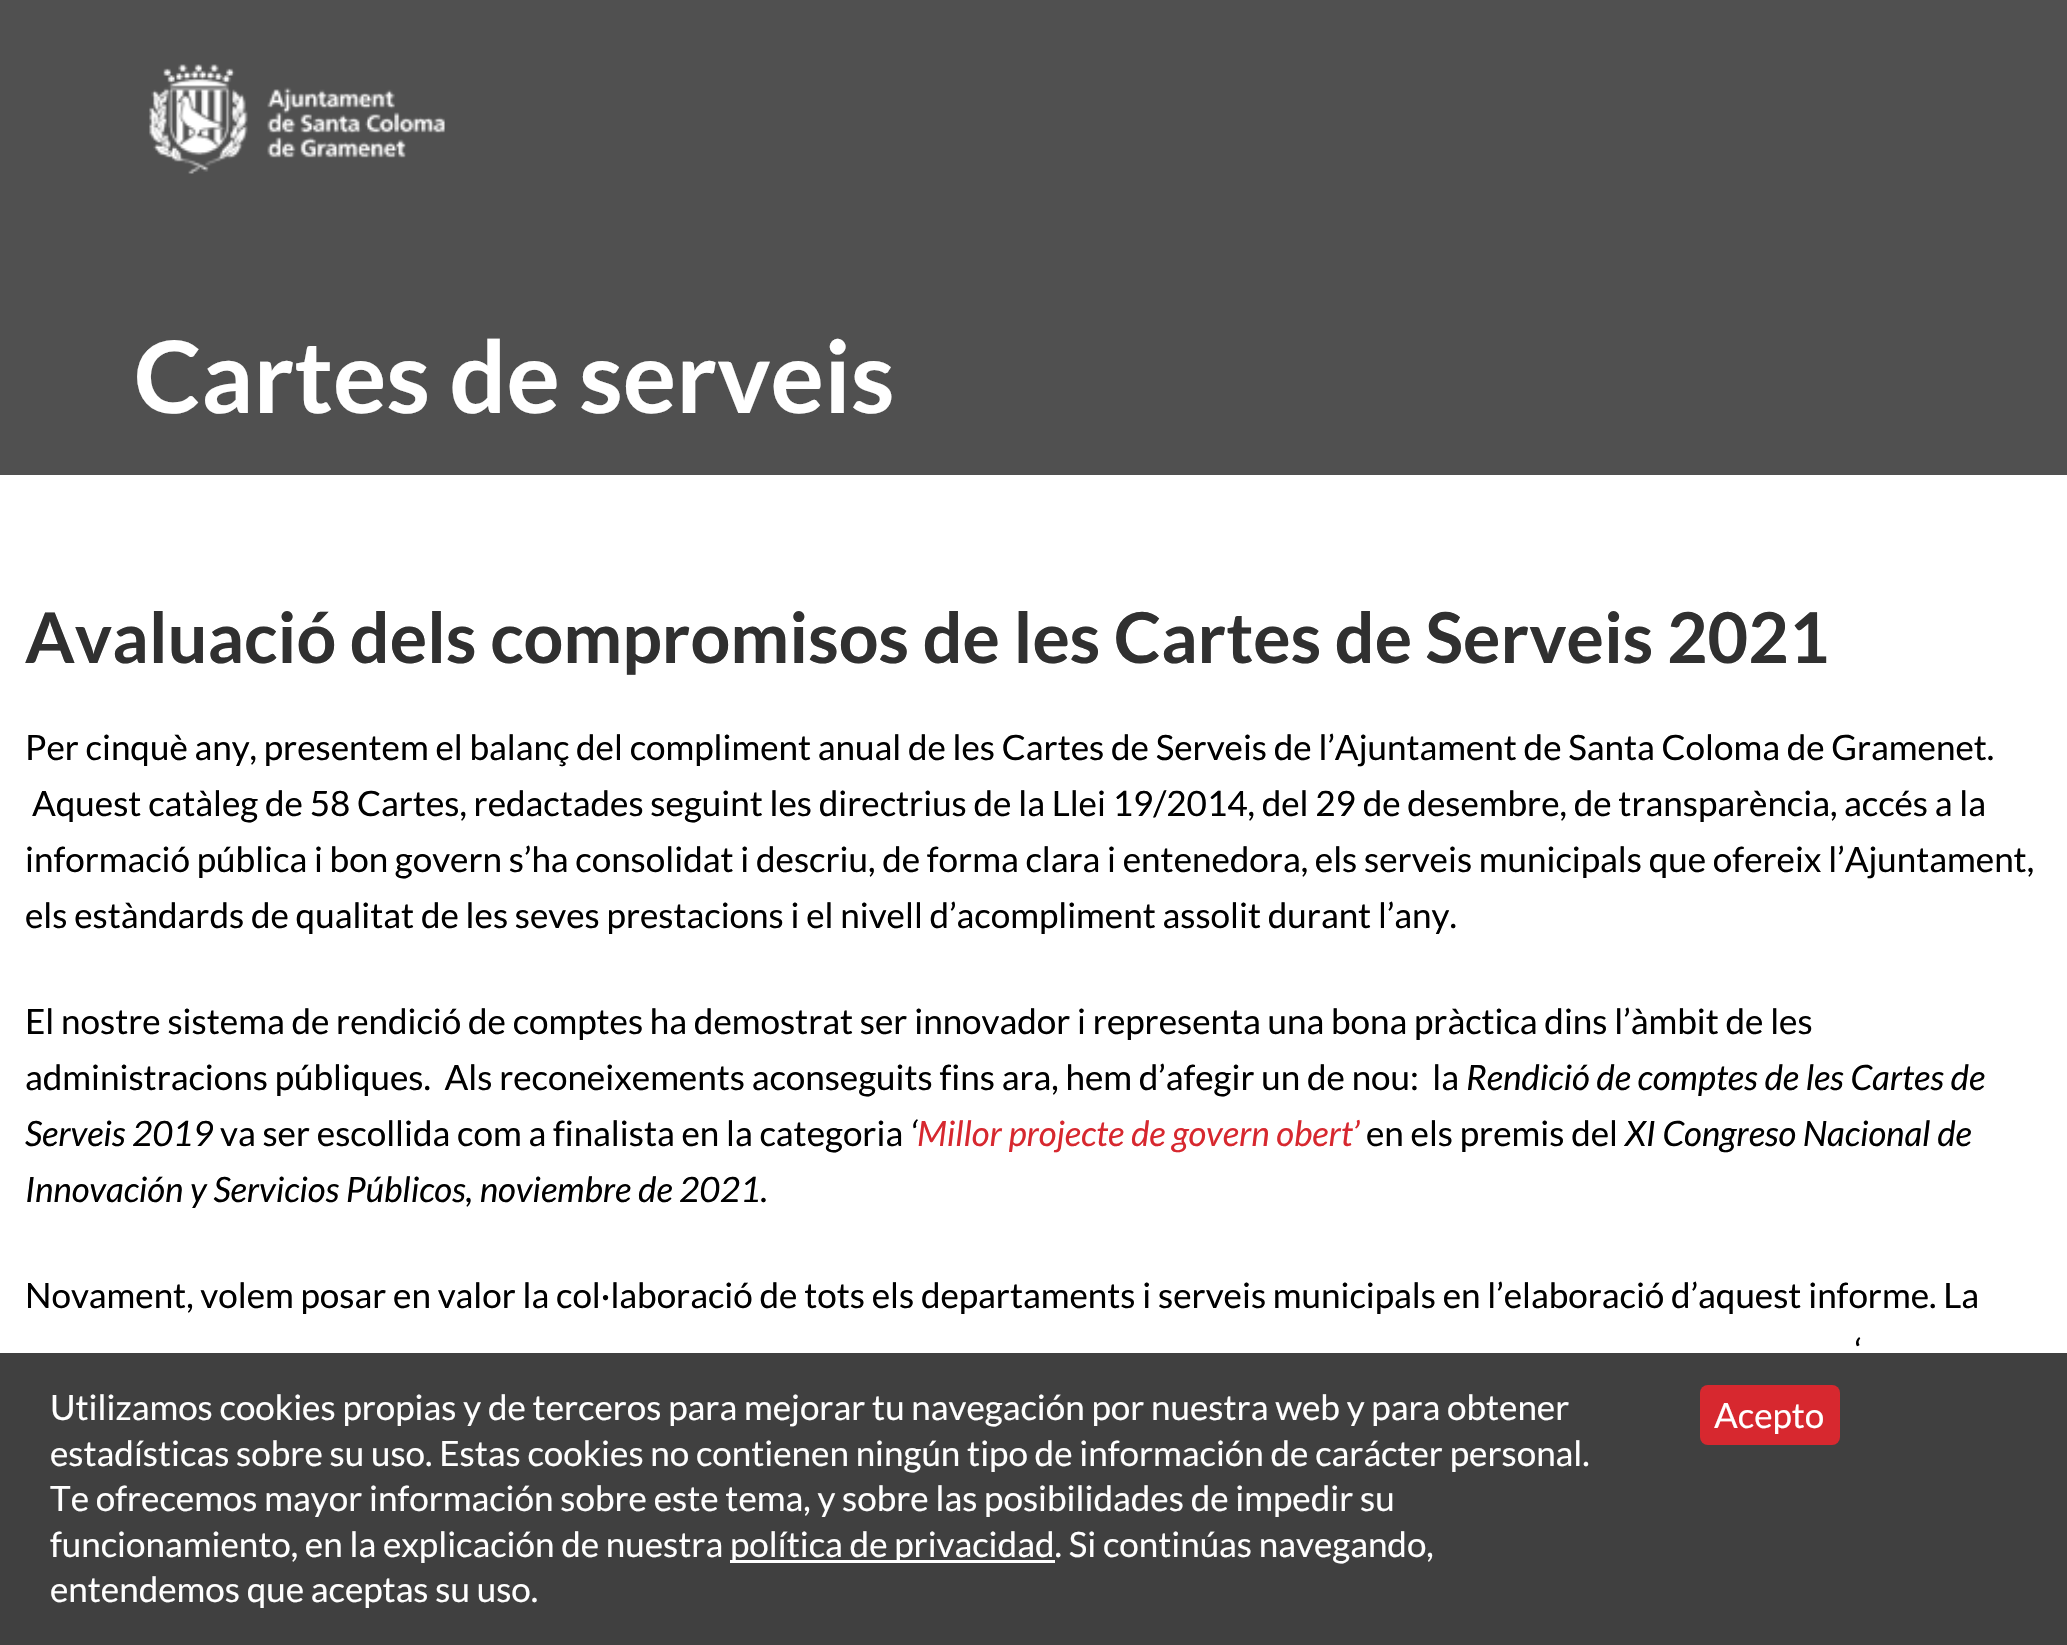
static SkFont makeFont(const char* family, int weight, float size, bool italic = false) {
  SkFontStyle style(weight, SkFontStyle::kNormal_Width,
    italic ? SkFontStyle::kItalic_Slant : SkFontStyle::kUpright_Slant);
  SkFont result(fontMgr->matchFamilyStyle(family, style), size);
  result.setSubpixel(true);
  return result;
}

static void text(SkCanvas* c, const char* s, float x, float y, const SkFont& font, SkColor color) {
  SkPaint ink(SkColor4f::FromColor(color));
  ink.setAntiAlias(true);
  c->drawString(s, x, y, font, ink);
}

static void box(SkCanvas* c, float l, float t, float r, float b, SkColor color) {
  SkPaint ink(SkColor4f::FromColor(color));
  ink.setAntiAlias(true);
  c->drawRect(SkRect::MakeLTRB(l, t, r, b), ink);
}

static void roundBox(SkCanvas* c, float l, float t, float r, float b, float radius, SkColor color) {
  SkPaint ink(SkColor4f::FromColor(color));
  ink.setAntiAlias(true);
  c->drawRoundRect(SkRect::MakeLTRB(l, t, r, b), radius, radius, ink);
}

static void picture(SkCanvas* c, const char* path, float l, float t, float r, float b) {
  auto image = SkImages::DeferredFromEncodedData(SkData::MakeFromFileName(path));
  c->drawImageRect(image, SkRect::MakeLTRB(l, t, r, b), SkSamplingOptions());
}

void draw(SkCanvas* c) {
  SkPaint paint;
  paint.setAntiAlias(true);
  c->clear(0xffffffff);
  box(c, 0, 0, 2067, 475, 0xff505050);
  picture(c, "img_01.png", 149, 64, 445, 174);
  SkFont face1 = makeFont("Lato", 700, 100);
  text(c, "Cartes de serveis", 134, 413, face1, 0xffffffff);
  SkFont face2 = makeFont("Lato", 700, 70);
  text(c, "Avaluació dels compromisos de les Cartes de Serveis 2021", 25, 663, face2, 0xff303030);
  SkFont face3 = makeFont("Lato", 400, 35);
  text(c, "Per cinquè any, presentem el balanç del compliment anual de les Cartes de Serveis de l’Ajuntament de Santa Coloma de Gramenet.", 25, 760, face3, 0xff000000);
  text(c, "Aquest catàleg de 58 Cartes, redactades seguint les directrius de la Llei 19/2014, del 29 de desembre, de transparència, accés a la", 32, 816, face3, 0xff000000);
  text(c, "informació pública i bon govern s’ha consolidat i descriu, de forma clara i entenedora, els serveis municipals que ofereix l’Ajuntament,", 25, 872, face3, 0xff000000);
  text(c, "els estàndards de qualitat de les seves prestacions i el nivell d’acompliment assolit durant l’any.", 25, 928, face3, 0xff000000);
  text(c, "El nostre sistema de rendició de comptes ha demostrat ser innovador i representa una bona pràctica dins l’àmbit de les", 25, 1034, face3, 0xff000000);
  text(c, "administracions públiques.  Als reconeixements aconseguits fins ara, hem d’afegir un de nou:  la", 25, 1090, face3, 0xff000000);
  SkFont face4 = makeFont("Lato", 400, 35, true);
  text(c, "Rendició de comptes de les Cartes de", 1466, 1090, face4, 0xff000000);
  text(c, "Serveis 2019", 25, 1146, face4, 0xff000000);
  text(c, "va ser escollida com a finalista en la categoria", 220, 1146, face3, 0xff000000);
  text(c, "‘", 910, 1146, face4, 0xff000000);
  text(c, "Millor projecte de govern obert’", 917, 1146, face4, 0xffd7282f);
  text(c, "en els premis del", 1366, 1146, face3, 0xff000000);
  text(c, "XI Congreso Nacional de", 1625, 1146, face4, 0xff000000);
  text(c, "Innovación y Servicios Públicos, noviembre de 2021.", 25, 1202, face4, 0xff000000);
  text(c, "Novament, volem posar en valor la col·laboració de tots els departaments i serveis municipals en l’elaboració d’aquest informe. La", 25, 1308, face3, 0xff000000);
  text(c, "‘", 1855, 1364, face3, 0xff000000);
  box(c, 0, 1353, 2067, 1645, 0xbf000000);
  text(c, "Utilizamos cookies propias y de terceros para mejorar tu navegación por nuestra web y para obtener", 50, 1420, face3, 0xffffffff);
  text(c, "estadísticas sobre su uso. Estas cookies no contienen ningún tipo de información de carácter personal.", 50, 1466, face3, 0xffffffff);
  text(c, "Te ofrecemos mayor información sobre este tema, y sobre las posibilidades de impedir su", 50, 1511, face3, 0xffffffff);
  text(c, "funcionamiento, en la explicación de nuestra", 50, 1557, face3, 0xffffffff);
  box(c, 730, 1560, 1055, 1563, 0xffffffff);
  text(c, "política de privacidad. Si continúas navegando,", 730, 1557, face3, 0xffffffff);
  text(c, "entendemos que aceptas su uso.", 50, 1602, face3, 0xffffffff);
  roundBox(c, 1700, 1385, 1840, 1445, 8, 0xffd7282f);
  text(c, "Acepto", 1714, 1428, face3, 0xffffffff);
}
